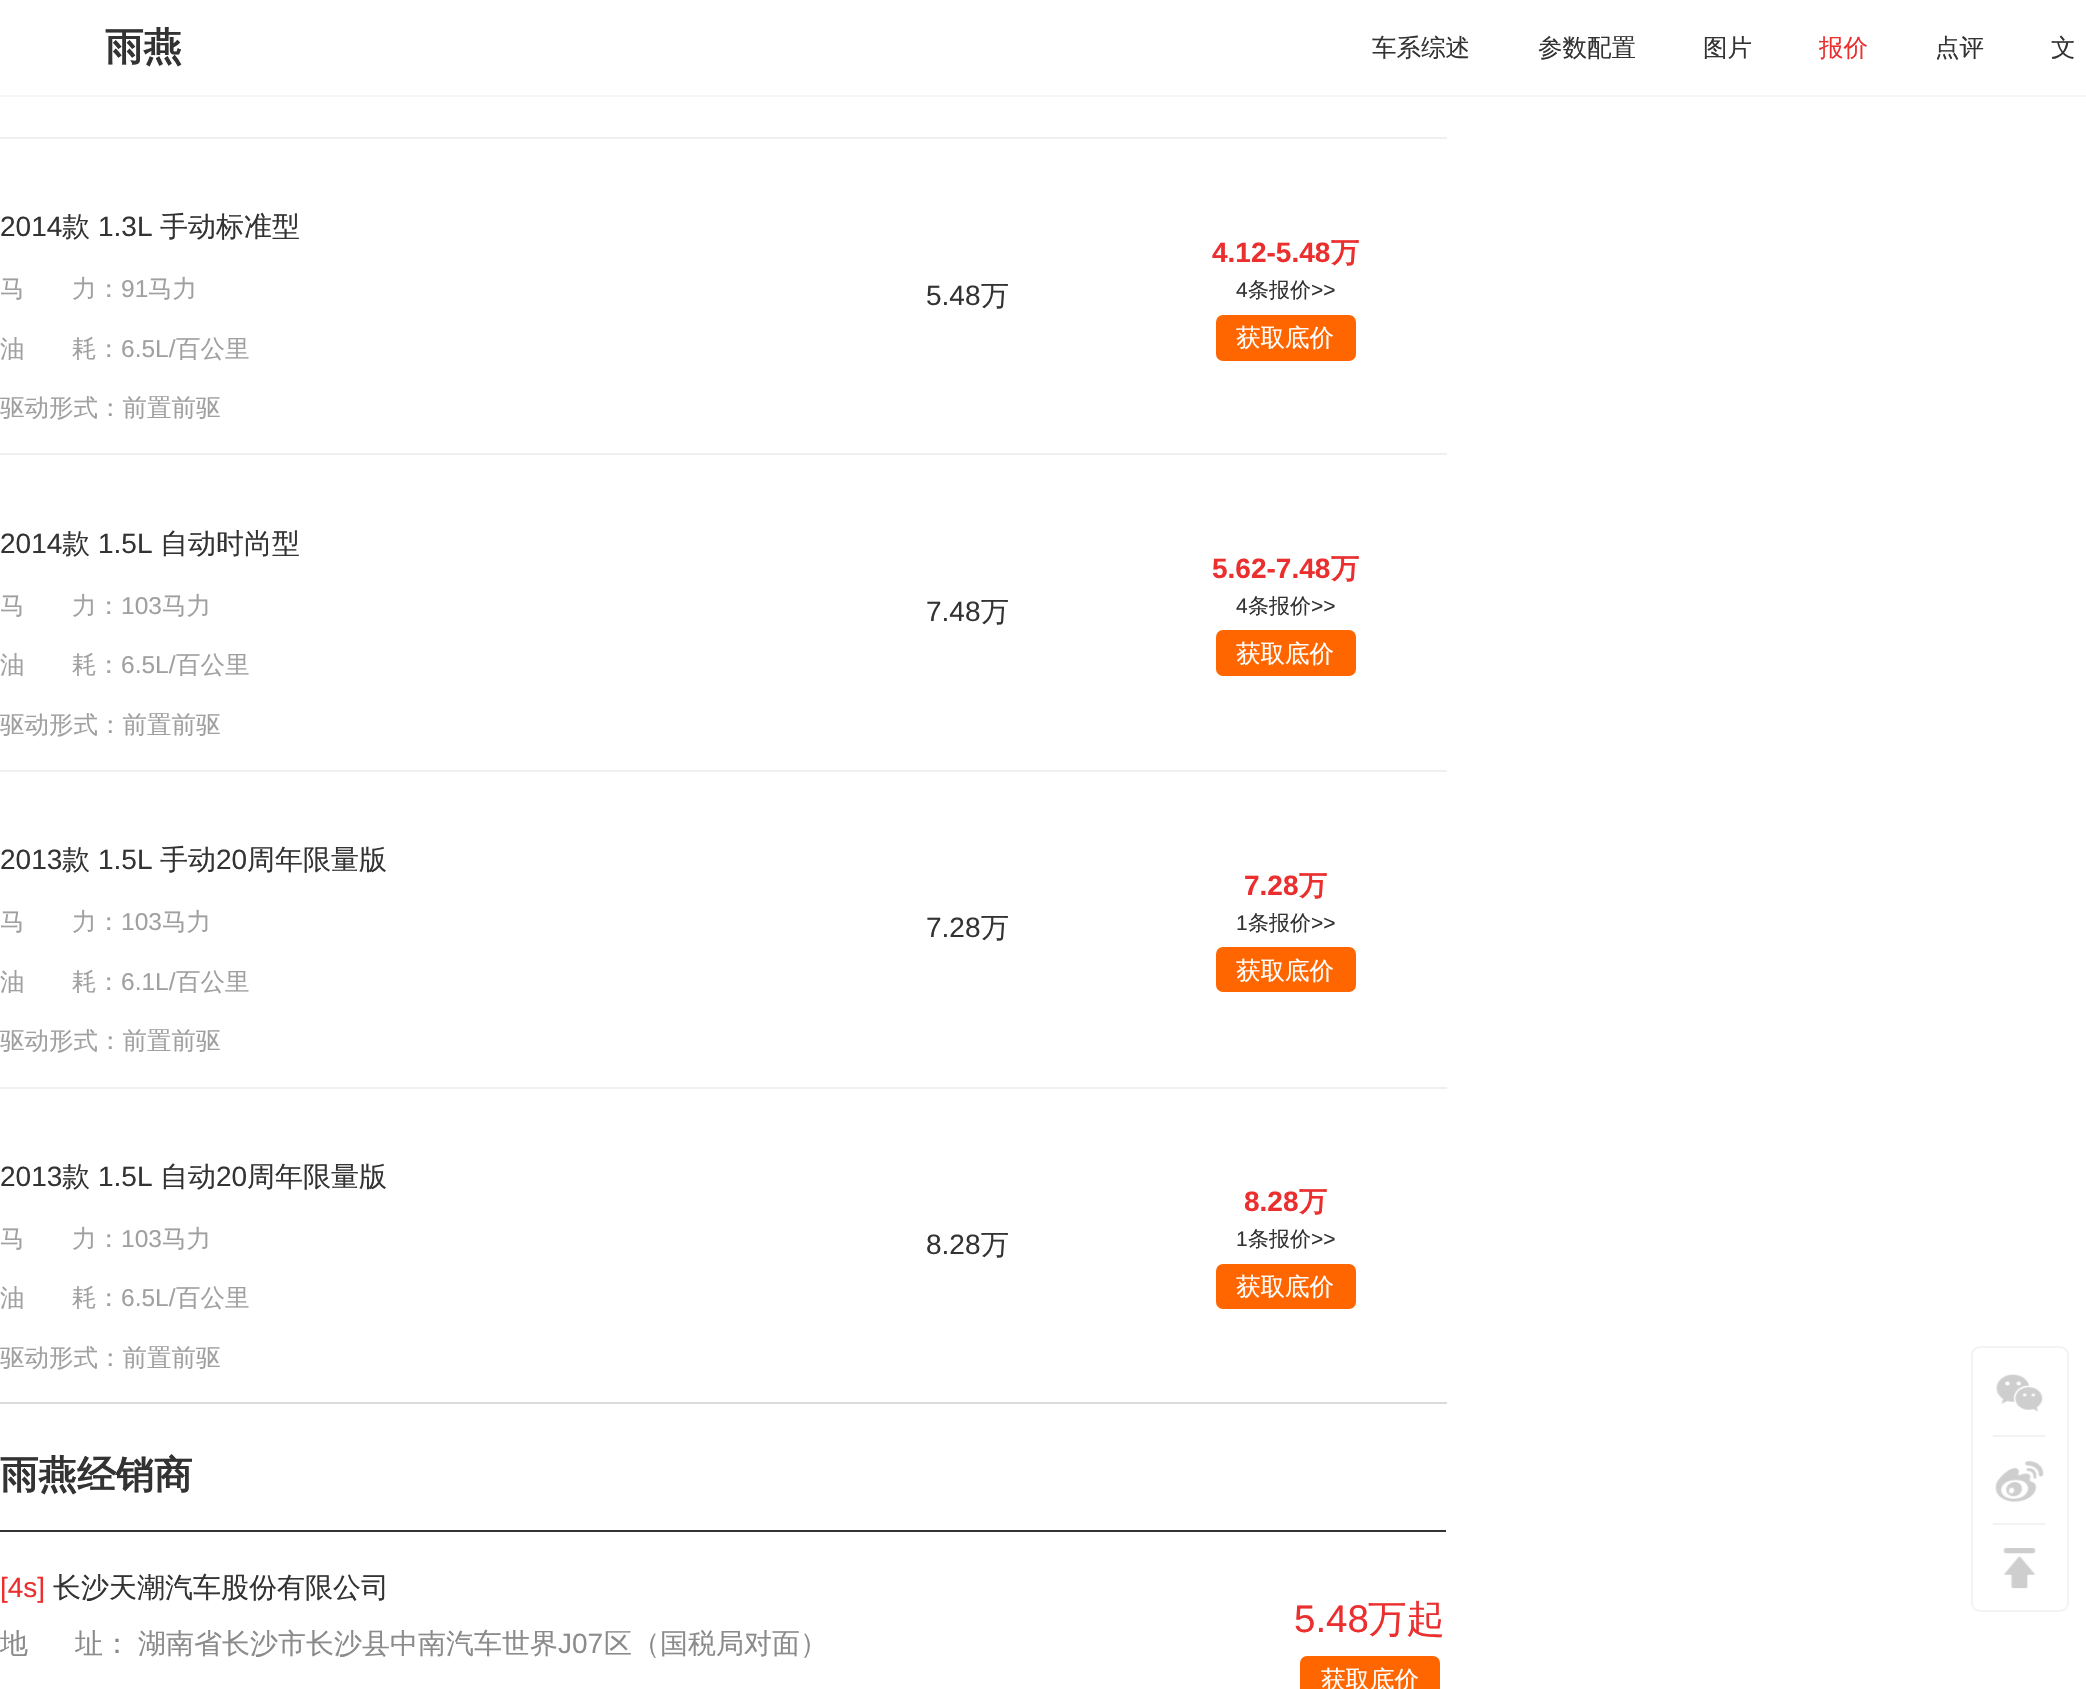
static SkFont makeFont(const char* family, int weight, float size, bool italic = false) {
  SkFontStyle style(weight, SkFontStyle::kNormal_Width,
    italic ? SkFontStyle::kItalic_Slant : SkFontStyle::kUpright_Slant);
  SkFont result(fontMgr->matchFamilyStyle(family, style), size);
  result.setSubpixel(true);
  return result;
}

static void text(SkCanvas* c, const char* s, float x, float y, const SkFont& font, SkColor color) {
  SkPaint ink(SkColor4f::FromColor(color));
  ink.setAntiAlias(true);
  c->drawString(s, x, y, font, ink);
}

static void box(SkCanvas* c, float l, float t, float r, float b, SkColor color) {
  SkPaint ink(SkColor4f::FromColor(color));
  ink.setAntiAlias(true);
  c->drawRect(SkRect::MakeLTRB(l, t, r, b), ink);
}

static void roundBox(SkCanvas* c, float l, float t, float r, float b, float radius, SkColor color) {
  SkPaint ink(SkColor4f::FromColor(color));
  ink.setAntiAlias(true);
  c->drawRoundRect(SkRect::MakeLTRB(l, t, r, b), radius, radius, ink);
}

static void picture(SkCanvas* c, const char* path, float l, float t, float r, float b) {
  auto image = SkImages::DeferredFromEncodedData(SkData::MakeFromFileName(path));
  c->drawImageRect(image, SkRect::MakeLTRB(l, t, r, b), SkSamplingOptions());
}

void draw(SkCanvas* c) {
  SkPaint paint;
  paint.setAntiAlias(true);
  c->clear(0xffffffff);
  box(c, 0, 95, 2086, 97, 0xfff7f7f7);
  SkFont face1 = makeFont("WenQuanYi Zen Hei", 700, 38.5f);
  text(c, "雨燕", 105, 60, face1, 0xff333333);
  SkFont face2 = makeFont("WenQuanYi Zen Hei", 500, 24.5f);
  text(c, "车系综述", 1372, 56, face2, 0xff333333);
  text(c, "参数配置", 1538, 56, face2, 0xff333333);
  text(c, "图片", 1703, 56, face2, 0xff333333);
  text(c, "报价", 1819, 56, face2, 0xffeb2e2e);
  text(c, "点评", 1935, 56, face2, 0xff333333);
  text(c, "文", 2051, 56, face2, 0xff333333);
  box(c, 0, 137, 1447, 139, 0xfff0f0f0);
  SkFont face3 = makeFont("Liberation Sans", 400, 28);
  text(c, "2014", 0, 236, face3, 0xff333333);
  SkFont face4 = makeFont("WenQuanYi Zen Hei", 500, 28);
  text(c, "款", 62, 236, face4, 0xff333333);
  text(c, "1.3L", 98, 236, face3, 0xff333333);
  text(c, "手动标准型", 160, 236, face4, 0xff333333);
  text(c, "马", 0, 297, face2, 0xffa0a0a0);
  text(c, "力：", 72, 297, face2, 0xffa0a0a0);
  SkFont face5 = makeFont("Liberation Sans", 400, 24.5f);
  text(c, "91", 121, 297, face5, 0xffa0a0a0);
  text(c, "马力", 148, 297, face2, 0xffa0a0a0);
  text(c, "油", 0, 357, face2, 0xffa0a0a0);
  text(c, "耗：", 72, 357, face2, 0xffa0a0a0);
  text(c, "6.5L/", 121, 357, face5, 0xffa0a0a0);
  text(c, "百公里", 176, 357, face2, 0xffa0a0a0);
  text(c, "驱动形式：前置前驱", 0, 416, face2, 0xffa0a0a0);
  text(c, "5.48", 926, 305, face3, 0xff333333);
  text(c, "万", 981, 305, face4, 0xff333333);
  box(c, 0, 453, 1447, 455, 0xfff0f0f0);
  SkFont face6 = makeFont("Liberation Sans", 700, 28);
  text(c, "4.12-5.48", 1212, 262, face6, 0xffeb2e2e);
  SkFont face7 = makeFont("WenQuanYi Zen Hei", 700, 28);
  text(c, "万", 1331, 262, face7, 0xffeb2e2e);
  SkFont face8 = makeFont("Liberation Sans", 400, 21);
  text(c, "4", 1236, 297, face8, 0xff333333);
  SkFont face9 = makeFont("WenQuanYi Zen Hei", 500, 21);
  text(c, "条报价", 1248, 297, face9, 0xff333333);
  text(c, ">>", 1311, 297, face8, 0xff333333);
  roundBox(c, 1216, 315, 1356, 361, 7, 0xffff6600);
  text(c, "获取底价", 1236, 346, face2, 0xffffffff);
  text(c, "2014", 0, 553, face3, 0xff333333);
  text(c, "款", 62, 553, face4, 0xff333333);
  text(c, "1.5L", 98, 553, face3, 0xff333333);
  text(c, "自动时尚型", 160, 553, face4, 0xff333333);
  text(c, "马", 0, 614, face2, 0xffa0a0a0);
  text(c, "力：", 72, 614, face2, 0xffa0a0a0);
  text(c, "103", 121, 614, face5, 0xffa0a0a0);
  text(c, "马力", 162, 614, face2, 0xffa0a0a0);
  text(c, "油", 0, 673, face2, 0xffa0a0a0);
  text(c, "耗：", 72, 673, face2, 0xffa0a0a0);
  text(c, "6.5L/", 121, 673, face5, 0xffa0a0a0);
  text(c, "百公里", 176, 673, face2, 0xffa0a0a0);
  text(c, "驱动形式：前置前驱", 0, 733, face2, 0xffa0a0a0);
  text(c, "7.48", 926, 621, face3, 0xff333333);
  text(c, "万", 981, 621, face4, 0xff333333);
  box(c, 0, 770, 1447, 772, 0xfff0f0f0);
  text(c, "5.62-7.48", 1212, 578, face6, 0xffeb2e2e);
  text(c, "万", 1331, 578, face7, 0xffeb2e2e);
  text(c, "4", 1236, 613, face8, 0xff333333);
  text(c, "条报价", 1248, 613, face9, 0xff333333);
  text(c, ">>", 1311, 613, face8, 0xff333333);
  roundBox(c, 1216, 630, 1356, 676, 7, 0xffff6600);
  text(c, "获取底价", 1236, 662, face2, 0xffffffff);
  text(c, "2013", 0, 869, face3, 0xff333333);
  text(c, "款", 62, 869, face4, 0xff333333);
  text(c, "1.5L", 98, 869, face3, 0xff333333);
  text(c, "手动", 160, 869, face4, 0xff333333);
  text(c, "20", 216, 869, face3, 0xff333333);
  text(c, "周年限量版", 247, 869, face4, 0xff333333);
  text(c, "马", 0, 930, face2, 0xffa0a0a0);
  text(c, "力：", 72, 930, face2, 0xffa0a0a0);
  text(c, "103", 121, 930, face5, 0xffa0a0a0);
  text(c, "马力", 162, 930, face2, 0xffa0a0a0);
  text(c, "油", 0, 990, face2, 0xffa0a0a0);
  text(c, "耗：", 72, 990, face2, 0xffa0a0a0);
  text(c, "6.1L/", 121, 990, face5, 0xffa0a0a0);
  text(c, "百公里", 176, 990, face2, 0xffa0a0a0);
  text(c, "驱动形式：前置前驱", 0, 1049, face2, 0xffa0a0a0);
  text(c, "7.28", 926, 937, face3, 0xff333333);
  text(c, "万", 981, 937, face4, 0xff333333);
  box(c, 0, 1087, 1447, 1089, 0xfff0f0f0);
  text(c, "7.28", 1244, 895, face6, 0xffeb2e2e);
  text(c, "万", 1299, 895, face7, 0xffeb2e2e);
  text(c, "1", 1236, 930, face8, 0xff333333);
  text(c, "条报价", 1248, 930, face9, 0xff333333);
  text(c, ">>", 1311, 930, face8, 0xff333333);
  roundBox(c, 1216, 947, 1356, 992, 7, 0xffff6600);
  text(c, "获取底价", 1236, 979, face2, 0xffffffff);
  text(c, "2013", 0, 1186, face3, 0xff333333);
  text(c, "款", 62, 1186, face4, 0xff333333);
  text(c, "1.5L", 98, 1186, face3, 0xff333333);
  text(c, "自动", 160, 1186, face4, 0xff333333);
  text(c, "20", 216, 1186, face3, 0xff333333);
  text(c, "周年限量版", 247, 1186, face4, 0xff333333);
  text(c, "马", 0, 1247, face2, 0xffa0a0a0);
  text(c, "力：", 72, 1247, face2, 0xffa0a0a0);
  text(c, "103", 121, 1247, face5, 0xffa0a0a0);
  text(c, "马力", 162, 1247, face2, 0xffa0a0a0);
  text(c, "油", 0, 1306, face2, 0xffa0a0a0);
  text(c, "耗：", 72, 1306, face2, 0xffa0a0a0);
  text(c, "6.5L/", 121, 1306, face5, 0xffa0a0a0);
  text(c, "百公里", 176, 1306, face2, 0xffa0a0a0);
  text(c, "驱动形式：前置前驱", 0, 1366, face2, 0xffa0a0a0);
  text(c, "8.28", 926, 1254, face3, 0xff333333);
  text(c, "万", 981, 1254, face4, 0xff333333);
  box(c, 0, 1402, 1447, 1404, 0xffdadada);
  text(c, "8.28", 1244, 1211, face6, 0xffeb2e2e);
  text(c, "万", 1299, 1211, face7, 0xffeb2e2e);
  text(c, "1", 1236, 1246, face8, 0xff333333);
  text(c, "条报价", 1248, 1246, face9, 0xff333333);
  text(c, ">>", 1311, 1246, face8, 0xff333333);
  roundBox(c, 1216, 1264, 1356, 1309, 7, 0xffff6600);
  text(c, "获取底价", 1236, 1295, face2, 0xffffffff);
  text(c, "雨燕经销商", 0, 1488, face1, 0xff333333);
  box(c, 0, 1530, 1446, 1532, 0xff333333);
  text(c, "[4s]", 0, 1597, face3, 0xffeb2e2e);
  text(c, "长沙天潮汽车股份有限公司", 53, 1597, face4, 0xff333333);
  text(c, "地", 0, 1653, face4, 0xff8b8b8b);
  text(c, "址：", 75, 1653, face4, 0xff8b8b8b);
  text(c, "湖南省长沙市长沙县中南汽车世界", 138, 1653, face4, 0xff8b8b8b);
  text(c, "J07", 558, 1653, face3, 0xff8b8b8b);
  text(c, "区（国税局对面）", 604, 1653, face4, 0xff8b8b8b);
  SkFont face10 = makeFont("Liberation Sans", 400, 38.5f);
  text(c, "5.48", 1294, 1632, face10, 0xffeb2e2e);
  SkFont face11 = makeFont("WenQuanYi Zen Hei", 500, 38.5f);
  text(c, "万起", 1368, 1632, face11, 0xffeb2e2e);
  roundBox(c, 1300, 1656, 1440, 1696, 7, 0xffff6600);
  text(c, "获取底价", 1321, 1688, face2, 0xffffffff);
  paint.setStyle(SkPaint::kStroke_Style);
  paint.setStrokeWidth(2);
  paint.setColor(0xfff3f3f3);
  c->drawRoundRect(SkRect::MakeLTRB(1972, 1347, 2068, 1611), 8, 8, paint);
  picture(c, "img_01.png", 1996, 1374, 2043, 1412);
  box(c, 1993, 1435, 2046, 1437, 0xfff3f3f3);
  picture(c, "img_02.png", 1995, 1461, 2044, 1502);
  box(c, 1993, 1523, 2046, 1525, 0xfff3f3f3);
  picture(c, "img_03.png", 2003, 1548, 2036, 1589);
}
